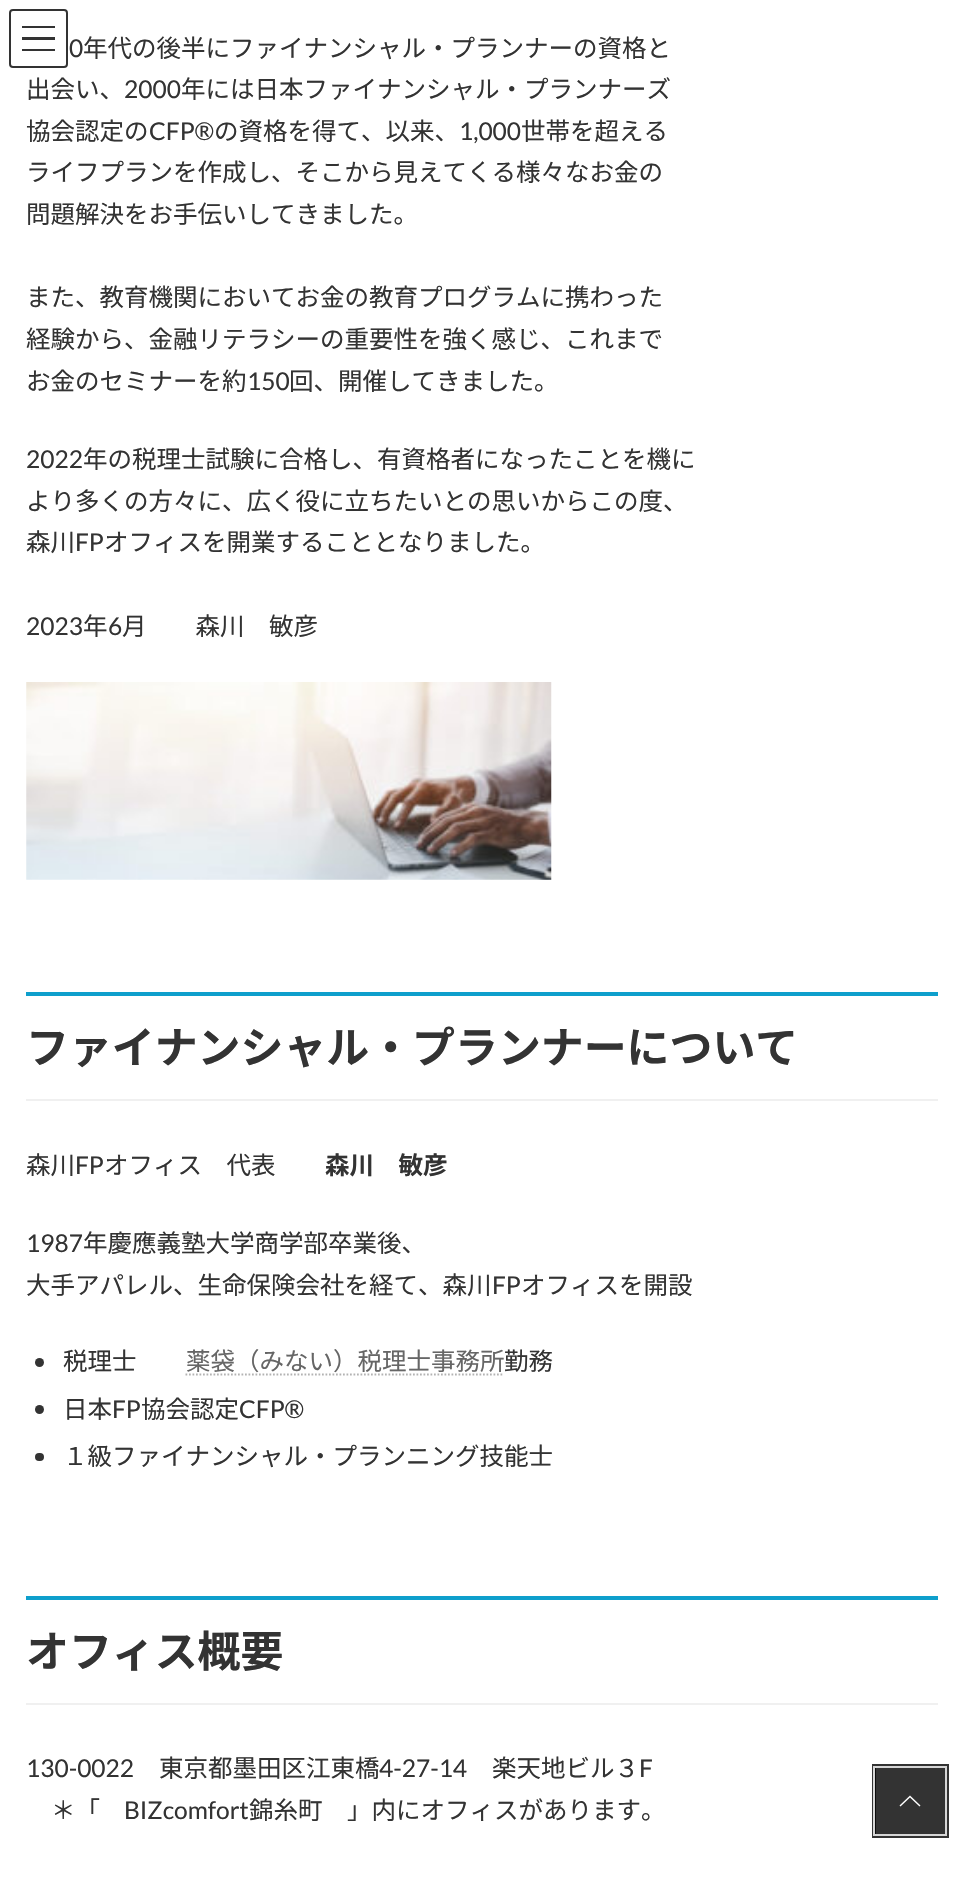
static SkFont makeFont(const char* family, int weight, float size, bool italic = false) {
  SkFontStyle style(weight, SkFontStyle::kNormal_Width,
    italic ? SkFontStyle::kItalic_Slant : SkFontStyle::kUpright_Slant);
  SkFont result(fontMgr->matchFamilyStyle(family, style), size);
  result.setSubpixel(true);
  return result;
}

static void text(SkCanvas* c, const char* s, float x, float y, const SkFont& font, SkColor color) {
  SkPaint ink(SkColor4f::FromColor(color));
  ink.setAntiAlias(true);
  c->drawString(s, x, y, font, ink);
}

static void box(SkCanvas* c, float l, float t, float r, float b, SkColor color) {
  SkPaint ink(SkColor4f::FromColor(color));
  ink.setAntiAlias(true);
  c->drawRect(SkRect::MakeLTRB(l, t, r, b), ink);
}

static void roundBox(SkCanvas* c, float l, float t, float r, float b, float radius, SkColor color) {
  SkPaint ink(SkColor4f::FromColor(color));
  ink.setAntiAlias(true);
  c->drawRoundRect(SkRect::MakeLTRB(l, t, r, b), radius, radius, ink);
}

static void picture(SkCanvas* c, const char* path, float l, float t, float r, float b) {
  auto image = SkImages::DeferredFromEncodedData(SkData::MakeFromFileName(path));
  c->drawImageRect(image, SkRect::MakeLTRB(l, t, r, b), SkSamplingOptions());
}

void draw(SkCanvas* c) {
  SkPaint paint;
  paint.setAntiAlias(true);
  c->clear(0xffffffff);
  box(c, 22, 26, 55, 28, 0xff333333);
  box(c, 22, 37, 55, 40, 0xcc000000);
  box(c, 22, 49, 55, 51, 0xcc000000);
  paint.setStyle(SkPaint::kStroke_Style);
  paint.setStrokeWidth(2);
  paint.setColor(0xff333333);
  c->drawRoundRect(SkRect::MakeLTRB(10, 10, 67, 67), 3, 3, paint);
  SkFont face1 = makeFont("Lato", 400, 24.5f);
  text(c, "0", 69, 57, face1, 0xff333333);
  SkFont face2 = makeFont("Noto Sans JP", 400, 24.5f);
  text(c, "年代の後半にファイナンシャル・プランナーの資格と", 83, 57, face2, 0xff333333);
  text(c, "出会い、", 26, 98, face2, 0xff333333);
  text(c, "2000", 124, 98, face1, 0xff333333);
  text(c, "年には日本ファイナンシャル・プランナーズ", 181, 98, face2, 0xff333333);
  text(c, "協会認定の", 26, 140, face2, 0xff333333);
  text(c, "CFP®", 149, 140, face1, 0xff333333);
  text(c, "の資格を得て、以来、", 214, 140, face2, 0xff333333);
  text(c, "1,000", 459, 140, face1, 0xff333333);
  text(c, "世帯を超える", 521, 140, face2, 0xff333333);
  text(c, "ライフプランを作成し、そこから見えてくる様々なお金の", 26, 181, face2, 0xff333333);
  text(c, "問題解決をお手伝いしてきました。", 26, 223, face2, 0xff333333);
  text(c, "また、教育機関においてお金の教育プログラムに携わった", 26, 306, face2, 0xff333333);
  text(c, "経験から、金融リテラシーの重要性を強く感じ、これまで", 26, 348, face2, 0xff333333);
  text(c, "お金のセミナーを約", 26, 390, face2, 0xff333333);
  text(c, "150", 247, 390, face1, 0xff333333);
  text(c, "回、開催してきました。", 289, 390, face2, 0xff333333);
  text(c, "2022", 26, 468, face1, 0xff333333);
  text(c, "年の税理士試験に合格し、有資格者になったことを機に", 83, 468, face2, 0xff333333);
  text(c, "より多くの方々に、広く役に立ちたいとの思いからこの度、", 26, 510, face2, 0xff333333);
  text(c, "森川", 26, 551, face2, 0xff333333);
  text(c, "FP", 75, 551, face1, 0xff333333);
  text(c, "オフィスを開業することとなりました。", 104, 551, face2, 0xff333333);
  text(c, "2023", 26, 635, face1, 0xff333333);
  text(c, "年", 83, 635, face2, 0xff333333);
  text(c, "6", 108, 635, face1, 0xff333333);
  text(c, "月　　森川　敏彦", 122, 635, face2, 0xff333333);
  picture(c, "img_01.png", 26, 682, 552, 880);
  box(c, 26, 992, 938, 996, 0xff0e9fcc);
  box(c, 26, 1099, 938, 1101, 0xfff0f0f0);
  SkFont face3 = makeFont("Noto Sans JP", 700, 42.9f);
  text(c, "ファイナンシャル・プランナーについて", 26, 1063, face3, 0xff333333);
  text(c, "森川", 26, 1174, face2, 0xff333333);
  text(c, "FP", 75, 1174, face1, 0xff333333);
  text(c, "オフィス　代表", 104, 1174, face2, 0xff333333);
  SkFont face4 = makeFont("Noto Sans JP", 700, 24.5f);
  text(c, "森川　敏彦", 325, 1174, face4, 0xff333333);
  text(c, "1987", 26, 1252, face1, 0xff333333);
  text(c, "年慶應義塾大学商学部卒業後、", 83, 1252, face2, 0xff333333);
  text(c, "大手アパレル、生命保険会社を経て、森川", 26, 1294, face2, 0xff333333);
  text(c, "FP", 492, 1294, face1, 0xff333333);
  text(c, "オフィスを開設", 521, 1294, face2, 0xff333333);
  paint.setStyle(SkPaint::kFill_Style);
  c->drawCircle(39.5f, 1362.5f, 4.5f, paint);
  text(c, "税理士", 63, 1370, face2, 0xff333333);
  text(c, "薬袋（みない）税理士事務所", 186, 1370, face2, 0xff666666);
  paint.setStyle(SkPaint::kStroke_Style);
  paint.setStrokeWidth(1.8f);
  paint.setColor(0xffb3b3b3);
  paint.setPathEffect(SkDashPathEffect::Make({{1.75f, 1.75f}}, 0));
  c->drawPath(SkPathBuilder().moveTo(185.5f, 1374.5f).lineTo(504, 1374.5f).detach(), paint);
  paint.setPathEffect(nullptr);
  text(c, "勤務", 504, 1370, face2, 0xff333333);
  paint.setStyle(SkPaint::kFill_Style);
  paint.setColor(0xff333333);
  c->drawCircle(39.5f, 1409.5f, 4.5f, paint);
  text(c, "日本", 63, 1418, face2, 0xff333333);
  text(c, "FP", 112, 1418, face1, 0xff333333);
  text(c, "協会認定", 141, 1418, face2, 0xff333333);
  text(c, "CFP®", 239, 1418, face1, 0xff333333);
  roundBox(c, 35, 1453, 44, 1461, 4, 0xff333333);
  text(c, "１級ファイナンシャル・プランニング技能士", 63, 1465, face2, 0xff333333);
  box(c, 26, 1596, 938, 1600, 0xff0e9fcc);
  box(c, 26, 1703, 938, 1705, 0xfff0f0f0);
  text(c, "オフィス概要", 26, 1667, face3, 0xff333333);
  text(c, "130-0022", 26, 1777, face1, 0xff333333);
  text(c, "東京都墨田区江東橋", 159, 1777, face2, 0xff333333);
  text(c, "4-27-14", 379, 1777, face1, 0xff333333);
  text(c, "楽天地ビル３", 492, 1777, face2, 0xff333333);
  text(c, "F", 639, 1777, face1, 0xff333333);
  text(c, "＊「", 51, 1819, face2, 0xff333333);
  text(c, "BIZcomfort", 124, 1819, face1, 0xff333333);
  text(c, "錦糸町　」内にオフィスがあります。", 249, 1819, face2, 0xff333333);
  paint.setStyle(SkPaint::kStroke_Style);
  paint.setStrokeWidth(4);
  c->drawRect(SkRect::MakeLTRB(874, 1766, 947, 1836), paint);
  paint.setStrokeWidth(2);
  paint.setColor(0xffd6d6d6);
  c->drawRect(SkRect::MakeLTRB(874, 1767, 946, 1835), paint);
  box(c, 875, 1768, 945, 1834, 0xcc000000);
  paint.setStyle(SkPaint::kFill_Style);
  paint.setColor(0xffffffff);
  c->drawPath(SkPathBuilder().moveTo(920.5f, 1805.5f).lineTo(919.5f, 1806.5f).lineTo(910, 1797.5f).lineTo(900.5f, 1806.5f).lineTo(899.5f, 1805.5f).lineTo(910, 1795.5f).close().detach(), paint);
}
